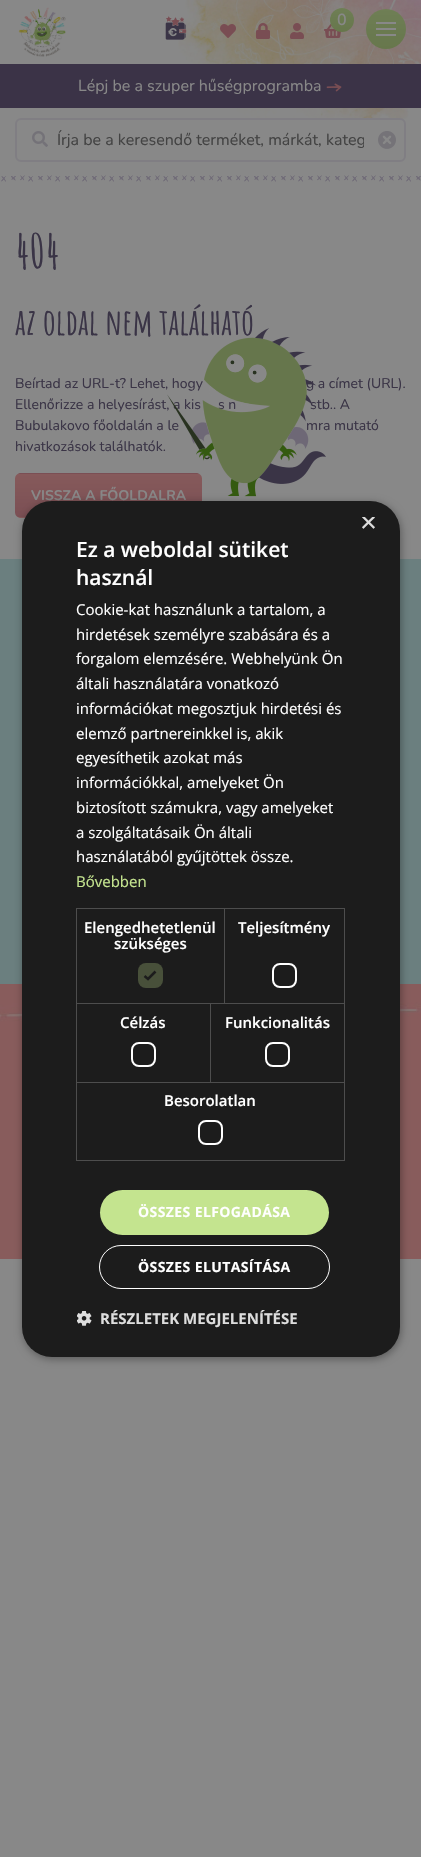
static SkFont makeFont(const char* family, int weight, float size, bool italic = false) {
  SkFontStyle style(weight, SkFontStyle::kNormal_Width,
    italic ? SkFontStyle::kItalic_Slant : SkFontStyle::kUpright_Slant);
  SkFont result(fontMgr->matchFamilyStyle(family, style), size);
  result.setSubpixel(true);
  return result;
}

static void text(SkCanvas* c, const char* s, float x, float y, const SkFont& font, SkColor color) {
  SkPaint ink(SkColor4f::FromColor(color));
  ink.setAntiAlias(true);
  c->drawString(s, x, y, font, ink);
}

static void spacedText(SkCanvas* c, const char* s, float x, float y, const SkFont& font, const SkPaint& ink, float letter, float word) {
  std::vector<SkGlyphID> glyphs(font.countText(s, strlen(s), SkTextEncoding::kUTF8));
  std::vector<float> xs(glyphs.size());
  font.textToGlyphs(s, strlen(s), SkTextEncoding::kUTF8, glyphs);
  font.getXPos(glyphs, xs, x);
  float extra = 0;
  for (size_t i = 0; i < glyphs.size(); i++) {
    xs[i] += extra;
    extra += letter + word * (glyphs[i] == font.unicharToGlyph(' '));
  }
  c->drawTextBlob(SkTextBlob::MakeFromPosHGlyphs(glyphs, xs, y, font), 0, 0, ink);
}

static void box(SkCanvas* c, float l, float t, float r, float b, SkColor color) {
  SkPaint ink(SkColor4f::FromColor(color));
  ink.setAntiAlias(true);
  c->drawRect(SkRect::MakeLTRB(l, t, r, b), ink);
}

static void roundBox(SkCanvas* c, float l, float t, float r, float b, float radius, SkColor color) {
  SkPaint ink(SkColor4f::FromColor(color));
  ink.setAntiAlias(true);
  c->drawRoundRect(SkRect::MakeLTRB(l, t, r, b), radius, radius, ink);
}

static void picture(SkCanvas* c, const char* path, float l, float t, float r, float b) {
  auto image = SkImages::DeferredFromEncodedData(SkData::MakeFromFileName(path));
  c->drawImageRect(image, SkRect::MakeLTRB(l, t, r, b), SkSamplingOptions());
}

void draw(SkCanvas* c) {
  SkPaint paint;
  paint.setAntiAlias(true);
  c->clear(0xff888888);
  picture(c, "img_01.png", 178, 0, 421, 132);
  picture(c, "img_02.png", 18, 7, 66, 57);
  picture(c, "img_03.png", 165, 16, 187, 40);
  picture(c, "img_04.png", 220, 24, 236, 38);
  picture(c, "img_05.png", 256, 23, 270, 39);
  picture(c, "img_06.png", 290, 23, 304, 39);
  picture(c, "img_07.png", 324, 24, 341, 38);
  {
    const SkColor colors[] = {0xff67774c, 0xff6b7b51, 0xff6f7f55};
    const float stops[] = {0.01f, 0.58f, 1};
    const SkPoint ends[] = {{342, 32}, {342, 8}};
    paint.setShader(SkGradientShader::MakeLinear(ends, colors, stops, 3, SkTileMode::kClamp));
    paint.setAlpha(255);
  }
  c->drawCircle(342, 20, 12, paint);
  SkFont face1 = makeFont("Nunito", 600, 16);
  text(c, "0", 337, 25, face1, 0xff888888);
  {
    const SkColor colors[] = {0xff67774c, 0xff6b7b51, 0xff6f7f55};
    const float stops[] = {0.01f, 0.58f, 1};
    const SkPoint ends[] = {{386, 49}, {386, 9}};
    paint.setShader(SkGradientShader::MakeLinear(ends, colors, stops, 3, SkTileMode::kClamp));
    paint.setAlpha(255);
  }
  c->drawCircle(386, 29, 20, paint);
  box(c, 376, 28, 396, 30, 0xff888888);
  box(c, 376, 22, 396, 24, 0xff888888);
  box(c, 376, 34, 396, 36, 0xff888888);
  box(c, 0, 64, 421, 108, 0xff3b3347);
  SkFont face2 = makeFont("Nunito", 400, 16);
  text(c, "Lépj be a szuper hűségprogramba", 78, 91, face2, 0xff888888);
  picture(c, "img_08.png", 326, 83, 342, 92);
  picture(c, "img_09.png", 1, 175, 421, 182);
  paint.setShader(nullptr);
  paint.setColor(0xff888888);
  c->drawRoundRect(SkRect::MakeLTRB(16, 119, 405, 161), 5, 5, paint);
  paint.setStyle(SkPaint::kStroke_Style);
  paint.setStrokeWidth(2);
  paint.setColor(0xff807e83);
  c->drawRoundRect(SkRect::MakeLTRB(16, 119, 405, 161), 5, 5, paint);
  picture(c, "img_10.png", 32, 131, 48, 147);
  c->save();
  c->clipRect(SkRect::MakeLTRB(57, 129, 364, 151));
  text(c, "Írja be a keresendő terméket, márkát, kateg", 57, 145, face2, 0xff434343);
  c->restore();
  picture(c, "img_11.png", 378, 131, 396, 149);
  SkFont face3 = makeFont("Amatic SC", 700, 48);
  text(c, "404", 15, 269, face3, 0xff3a3446);
  SkFont face4 = makeFont("Amatic SC", 700, 36);
  text(c, "az oldal nem található", 15, 335, face4, 0xff3a3446);
  SkFont face5 = makeFont("Nunito", 400, 14);
  text(c, "Beírtad az URL-t? Lehet, hogy", 15, 388, face5, 0xff3a3446);
  text(c, "g a címet (URL).", 306, 388, face5, 0xff3a3446);
  text(c, "Ellenőrizze a helyesírást, a kis", 15, 409, face5, 0xff3a3446);
  text(c, "s n", 218, 409, face5, 0xff3a3446);
  text(c, "stb.. A", 310, 409, face5, 0xff3a3446);
  text(c, "Bubulakovo főoldalán a le", 15, 430, face5, 0xff3a3446);
  text(c, "mra mutató", 306, 430, face5, 0xff3a3446);
  text(c, "hivatkozások találhatók.", 15, 451, face5, 0xff3a3446);
  c->save();
  c->clipPath(SkPathBuilder().moveTo(21, 473).lineTo(196, 473).cubicTo(199.5f, 473, 202, 475.5f, 202, 479).lineTo(202, 512).cubicTo(202, 515.5f, 199.5f, 518, 196, 518).lineTo(21, 518).cubicTo(17.5f, 518, 15, 515.5f, 15, 512).lineTo(15, 479).cubicTo(15, 475.5f, 17.5f, 473, 21, 473).close().detach(), true);
  paint.setStyle(SkPaint::kFill_Style);
  {
    const SkColor colors[] = {0xff865a5b, 0xff7b4f54};
    const float stops[] = {0, 1};
    const SkPoint ends[] = {{109, 431}, {109, 474}};
    paint.setShader(SkGradientShader::MakeLinear(ends, colors, stops, 2, SkTileMode::kClamp));
    paint.setAlpha(255);
  }
  c->drawRect(SkRect::MakeLTRB(15, 473, 202, 474), paint);
  {
    const SkColor colors[] = {0xff865a5b, 0xff7b4f54};
    const float stops[] = {0, 1};
    const SkPoint ends[] = {{109, 474}, {109, 517}};
    paint.setShader(SkGradientShader::MakeLinear(ends, colors, stops, 2, SkTileMode::kClamp));
    paint.setAlpha(255);
  }
  c->drawRect(SkRect::MakeLTRB(15, 474, 202, 517), paint);
  {
    const SkColor colors[] = {0xff865a5b, 0xff7b4f54};
    const float stops[] = {0, 1};
    const SkPoint ends[] = {{109, 517}, {109, 560}};
    paint.setShader(SkGradientShader::MakeLinear(ends, colors, stops, 2, SkTileMode::kClamp));
    paint.setAlpha(255);
  }
  c->drawRect(SkRect::MakeLTRB(15, 517, 26, 518), paint);
  c->restore();
  SkFont face6 = makeFont("Nunito", 700, 14);
  text(c, "VISSZA A FŐOLDALRA", 31, 500, face6, 0xff888888);
  picture(c, "img_12.png", 167, 328, 326, 497);
  box(c, 0, 559, 421, 984, 0xff6b7f7f);
  picture(c, "img_14.png", 0, 984, 421, 1259);
  paint.setShader(nullptr);
  paint.setColor(0x59000000);
  paint.setMaskFilter(SkMaskFilter::MakeBlur(kNormal_SkBlurStyle, 4));
  c->drawRoundRect(SkRect::MakeLTRB(23, 503, 401, 1359), 30, 30, paint);
  paint.setMaskFilter(nullptr);
  roundBox(c, 22, 501, 400, 1357, 30, 0xff1c1c1c);
  c->save();
  c->clipRect(SkRect::MakeLTRB(360, 517, 375, 532));
  SkFont face7 = makeFont("Liberation Sans", 400, 29);
  text(c, "×", 360, 532, face7, 0xffdddddd);
  c->restore();
  SkFont face8 = makeFont("Open Sans", 600, 21);
  text(c, "Ez a weboldal sütiket", 76, 557, face8, 0xffffffff);
  text(c, "használ", 76, 585, face8, 0xffffffff);
  SkFont face9 = makeFont("Open Sans", 400, 15);
  text(c, "Cookie-kat használunk a tartalom, a", 76, 615, face9, 0xffffffff);
  text(c, "hirdetések személyre szabására és a", 76, 640, face9, 0xffffffff);
  text(c, "forgalom elemzésére. Webhelyünk Ön", 76, 664, face9, 0xffffffff);
  text(c, "általi használatára vonatkozó", 76, 689, face9, 0xffffffff);
  text(c, "információkat megosztjuk hirdetési és", 76, 714, face9, 0xffffffff);
  text(c, "elemző partnereinkkel is, akik", 76, 739, face9, 0xffffffff);
  text(c, "egyesíthetik azokat más", 76, 763, face9, 0xffffffff);
  text(c, "információkkal, amelyeket Ön", 76, 788, face9, 0xffffffff);
  text(c, "biztosított számukra, vagy amelyeket", 76, 813, face9, 0xffffffff);
  text(c, "a szolgáltatásaik Ön általi", 76, 838, face9, 0xffffffff);
  text(c, "használatából gyűjtöttek össze.", 76, 862, face9, 0xffffffff);
  text(c, "Bővebben", 76, 887, face9, 0xffc4e48f);
  paint.setStyle(SkPaint::kStroke_Style);
  paint.setStrokeWidth(1);
  paint.setColor(0xff4d4d4d);
  c->drawRect(SkRect::MakeLTRB(76.5f, 908.5f, 224.5f, 1003.5f), paint);
  SkFont face10 = makeFont("Open Sans", 600, 15);
  text(c, "Elengedhetetlenül", 84, 933, face10, 0xffffffff);
  text(c, "szükséges", 114, 949, face10, 0xffffffff);
  roundBox(c, 138, 963, 163, 988, 8, 0xff48503a);
  paint.setStrokeWidth(2.6f);
  paint.setColor(0xff1c1c1c);
  c->drawPath(SkPathBuilder().moveTo(144.5f, 976).lineTo(148, 979).lineTo(155.5f, 971.5f).detach(), paint);
  paint.setStrokeWidth(1);
  paint.setColor(0xff4d4d4d);
  c->drawRect(SkRect::MakeLTRB(224.5f, 908.5f, 344.5f, 1003.5f), paint);
  text(c, "Teljesítmény", 238, 933, face10, 0xffffffff);
  paint.setStrokeWidth(2);
  paint.setColor(0xffffffff);
  c->drawRoundRect(SkRect::MakeLTRB(273, 964, 296, 987), 7, 7, paint);
  paint.setStrokeWidth(1);
  paint.setColor(0xff4d4d4d);
  c->drawRect(SkRect::MakeLTRB(76.5f, 1003.5f, 210.5f, 1082.5f), paint);
  text(c, "Célzás", 120, 1028, face10, 0xffffffff);
  paint.setStrokeWidth(2);
  paint.setColor(0xffffffff);
  c->drawRoundRect(SkRect::MakeLTRB(132, 1043, 155, 1066), 7, 7, paint);
  paint.setStrokeWidth(1);
  paint.setColor(0xff4d4d4d);
  c->drawRect(SkRect::MakeLTRB(210.5f, 1003.5f, 344.5f, 1082.5f), paint);
  text(c, "Funkcionalitás", 225, 1028, face10, 0xffffffff);
  paint.setStrokeWidth(2);
  paint.setColor(0xffffffff);
  c->drawRoundRect(SkRect::MakeLTRB(266, 1043, 289, 1066), 7, 7, paint);
  paint.setStrokeWidth(1);
  paint.setColor(0xff4d4d4d);
  c->drawRect(SkRect::MakeLTRB(76.5f, 1082.5f, 344.5f, 1160.5f), paint);
  text(c, "Besorolatlan", 164, 1106, face10, 0xffffffff);
  paint.setStrokeWidth(2);
  paint.setColor(0xffffffff);
  c->drawRoundRect(SkRect::MakeLTRB(199, 1121, 222, 1144), 7, 7, paint);
  roundBox(c, 100, 1190, 329, 1235, 22.5f, 0xffc4e48f);
  SkFont face11 = makeFont("Open Sans", 700, 14);
  paint.setStyle(SkPaint::kFill_Style);
  spacedText(c, "ÖSSZES ELFOGADÁSA", 138, 1217, face11, paint, 0.4f, 0);
  paint.setStyle(SkPaint::kStroke_Style);
  paint.setStrokeWidth(1);
  c->drawRoundRect(SkRect::MakeLTRB(99.5f, 1245.5f, 329.5f, 1288.5f), 21.5f, 21.5f, paint);
  paint.setStyle(SkPaint::kFill_Style);
  spacedText(c, "ÖSSZES ELUTASÍTÁSA", 138, 1272, face11, paint, 0.4f, 0);
  picture(c, "img_13.png", 77, 1311, 92, 1326);
  SkFont face12 = makeFont("Open Sans", 700, 15);
  text(c, "RÉSZLETEK MEGJELENÍTÉSE", 100, 1324, face12, 0xffdddddd);
}
